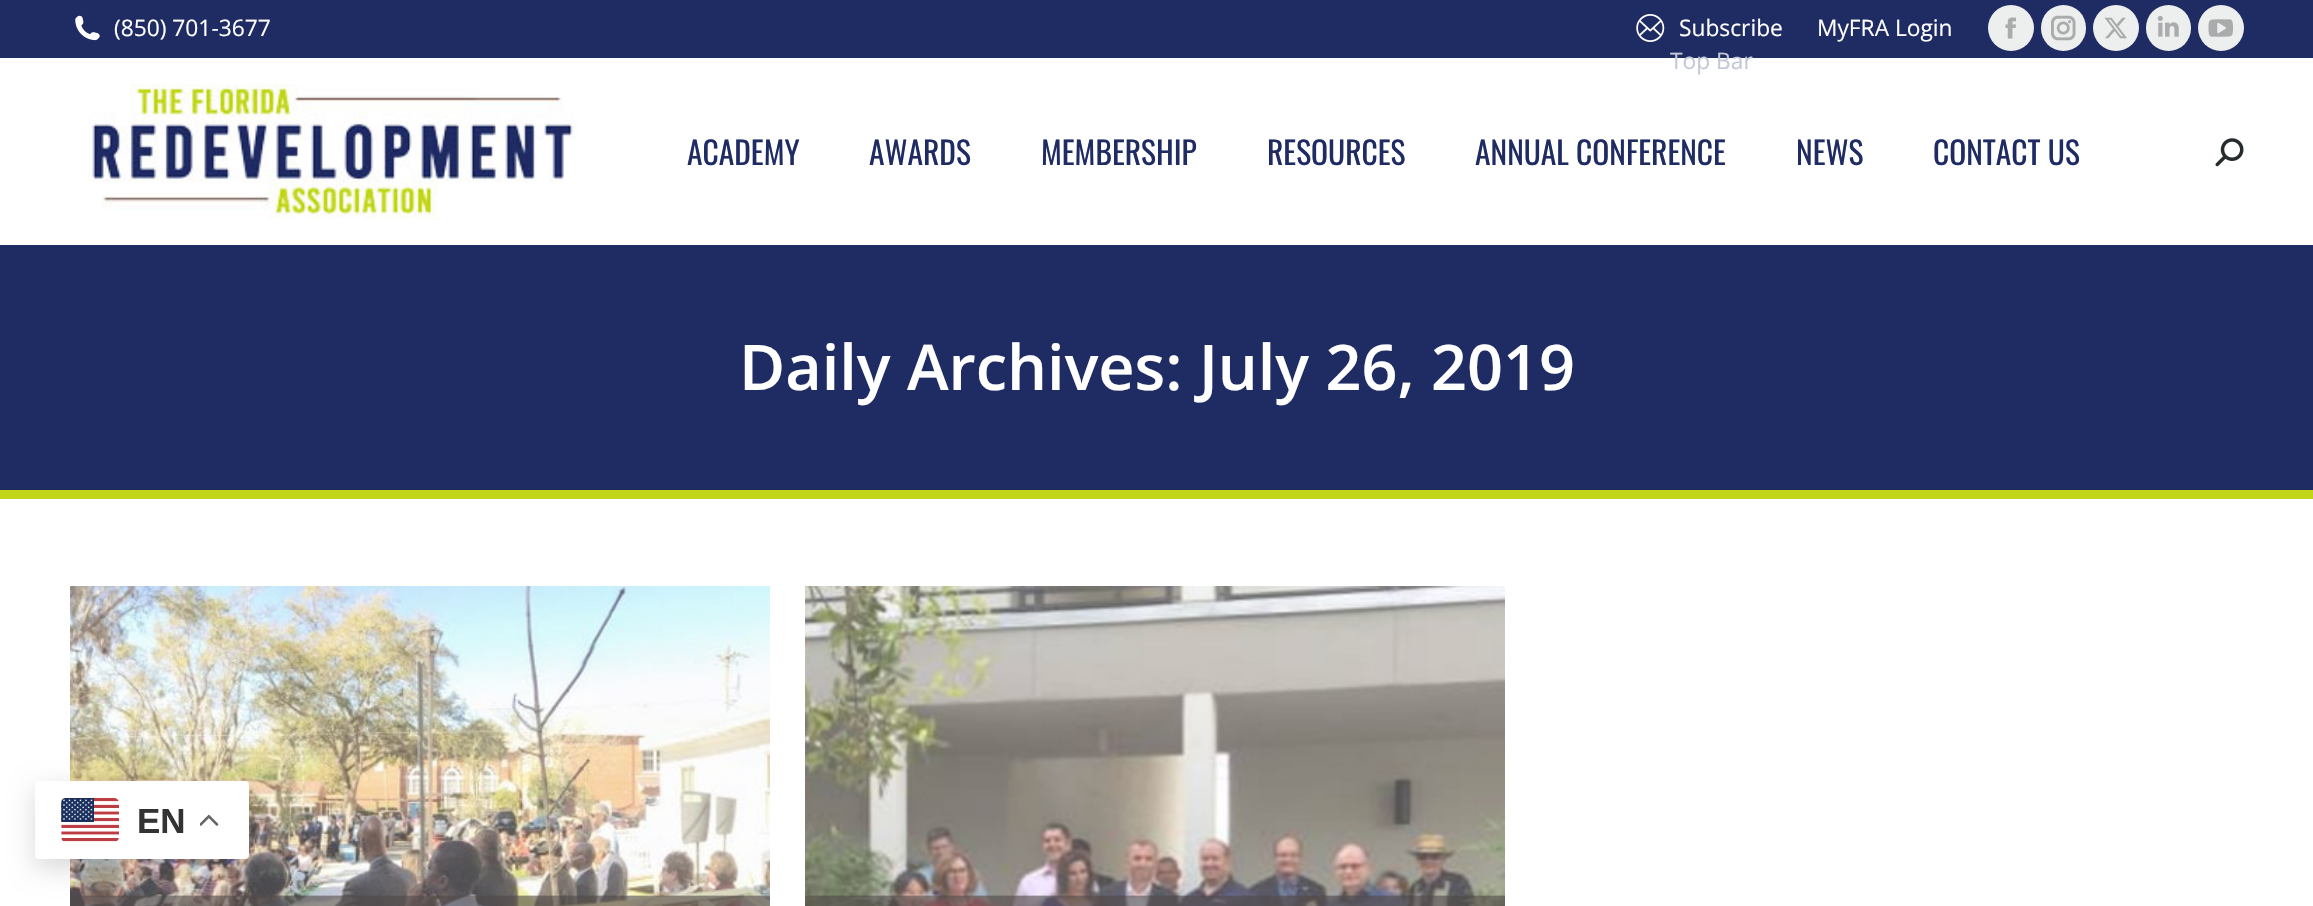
static SkFont makeFont(const char* family, int weight, float size, bool italic = false) {
  SkFontStyle style(weight, SkFontStyle::kNormal_Width,
    italic ? SkFontStyle::kItalic_Slant : SkFontStyle::kUpright_Slant);
  SkFont result(fontMgr->matchFamilyStyle(family, style), size);
  result.setSubpixel(true);
  return result;
}

static void text(SkCanvas* c, const char* s, float x, float y, const SkFont& font, SkColor color) {
  SkPaint ink(SkColor4f::FromColor(color));
  ink.setAntiAlias(true);
  c->drawString(s, x, y, font, ink);
}

static void box(SkCanvas* c, float l, float t, float r, float b, SkColor color) {
  SkPaint ink(SkColor4f::FromColor(color));
  ink.setAntiAlias(true);
  c->drawRect(SkRect::MakeLTRB(l, t, r, b), ink);
}

static void roundBox(SkCanvas* c, float l, float t, float r, float b, float radius, SkColor color) {
  SkPaint ink(SkColor4f::FromColor(color));
  ink.setAntiAlias(true);
  c->drawRoundRect(SkRect::MakeLTRB(l, t, r, b), radius, radius, ink);
}

static void picture(SkCanvas* c, const char* path, float l, float t, float r, float b) {
  auto image = SkImages::DeferredFromEncodedData(SkData::MakeFromFileName(path));
  c->drawImageRect(image, SkRect::MakeLTRB(l, t, r, b), SkSamplingOptions());
}

void draw(SkCanvas* c) {
  SkPaint paint;
  paint.setAntiAlias(true);
  c->clear(0xffffffff);
  box(c, 0, 0, 2313, 58, 0xff1f2b63);
  picture(c, "img_01.png", 75, 15, 100, 41);
  SkFont face1 = makeFont("Open Sans", 400, 22.75f);
  text(c, "(850) 701-3677", 114, 36, face1, 0xffffffff);
  picture(c, "img_02.png", 1636, 14, 1665, 42);
  text(c, "Subscribe", 1679, 36, face1, 0xffffffff);
  text(c, "MyFRA Login", 1817, 36, face1, 0xffffffff);
  text(c, "Top Bar", 1670, 69, face1, 0xffc4c8d6);
  paint.setColor(0xffedeeee);
  c->drawCircle(2011, 28, 23, paint);
  picture(c, "img_03.png", 2005, 17, 2016, 39);
  roundBox(c, 2041, 5, 2086, 51, 22.5f, 0xffedeeee);
  picture(c, "img_04.png", 2051, 15, 2076, 41);
  c->drawCircle(2116, 28, 23, paint);
  picture(c, "img_05.png", 2104, 17, 2127, 39);
  roundBox(c, 2146, 5, 2191, 51, 22.5f, 0xffedeeee);
  picture(c, "img_06.png", 2157, 15, 2179, 37);
  c->drawCircle(2221, 28, 23, paint);
  picture(c, "img_07.png", 2208, 19, 2233, 37);
  picture(c, "img_08.png", 88, 84, 577, 219);
  SkFont face2 = makeFont("Oswald", 400, 31.5f);
  text(c, "ACADEMY", 687, 165, face2, 0xff1f2b63);
  text(c, "AWARDS", 869, 165, face2, 0xff1f2b63);
  text(c, "MEMBERSHIP", 1041, 165, face2, 0xff1f2b63);
  text(c, "RESOURCES", 1267, 165, face2, 0xff1f2b63);
  text(c, "ANNUAL CONFERENCE", 1475, 165, face2, 0xff1f2b63);
  text(c, "NEWS", 1796, 165, face2, 0xff1f2b63);
  text(c, "CONTACT US", 1933, 165, face2, 0xff1f2b63);
  picture(c, "img_09.png", 2215, 138, 2244, 167);
  box(c, 0, 245, 2313, 490, 0xff1f2b63);
  box(c, 0, 490, 2313, 499, 0xffc2d619);
  SkFont face3 = makeFont("Open Sans", 600, 63);
  text(c, "Daily Archives: July 26, 2019", 739, 390, face3, 0xffffffff);
  picture(c, "img_10.png", 70, 586, 770, 906);
  picture(c, "img_11.png", 805, 586, 1505, 906);
  paint.setColor(0x26000000);
  paint.setMaskFilter(SkMaskFilter::MakeBlur(kNormal_SkBlurStyle, 13));
  c->drawRoundRect(SkRect::MakeLTRB(35, 789, 249, 868), 4, 4, paint);
  paint.setMaskFilter(nullptr);
  roundBox(c, 35, 781, 249, 859, 4, 0xffffffff);
  picture(c, "img_12.png", 61, 798, 119, 842);
  SkFont face4 = makeFont("Liberation Sans", 700, 35);
  text(c, "EN", 137, 833, face4, 0xff333333);
  picture(c, "img_13.png", 200, 814, 219, 826);
}
